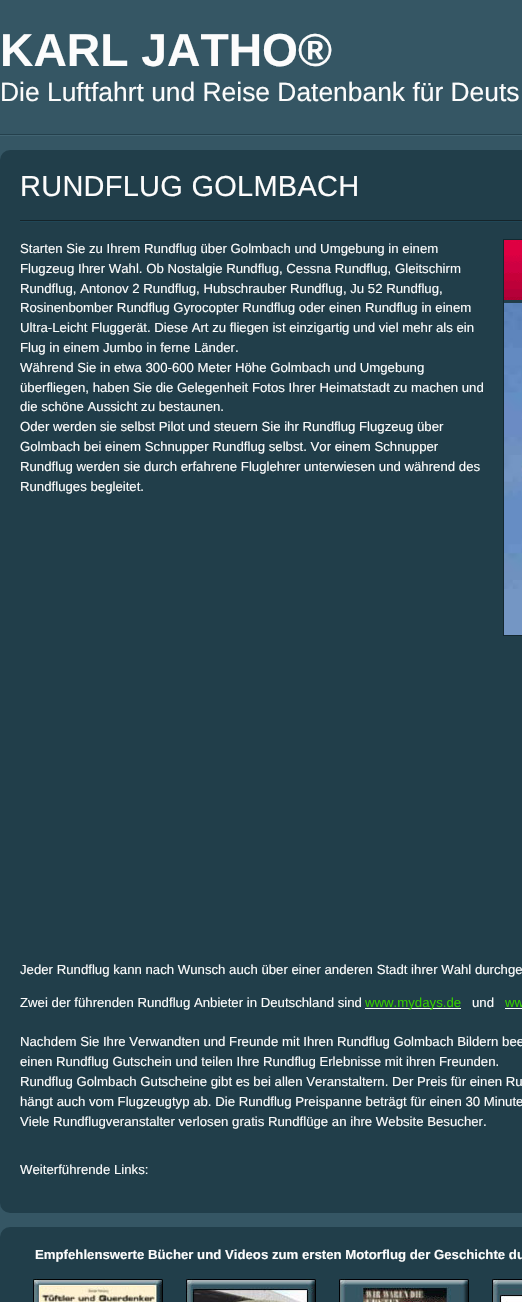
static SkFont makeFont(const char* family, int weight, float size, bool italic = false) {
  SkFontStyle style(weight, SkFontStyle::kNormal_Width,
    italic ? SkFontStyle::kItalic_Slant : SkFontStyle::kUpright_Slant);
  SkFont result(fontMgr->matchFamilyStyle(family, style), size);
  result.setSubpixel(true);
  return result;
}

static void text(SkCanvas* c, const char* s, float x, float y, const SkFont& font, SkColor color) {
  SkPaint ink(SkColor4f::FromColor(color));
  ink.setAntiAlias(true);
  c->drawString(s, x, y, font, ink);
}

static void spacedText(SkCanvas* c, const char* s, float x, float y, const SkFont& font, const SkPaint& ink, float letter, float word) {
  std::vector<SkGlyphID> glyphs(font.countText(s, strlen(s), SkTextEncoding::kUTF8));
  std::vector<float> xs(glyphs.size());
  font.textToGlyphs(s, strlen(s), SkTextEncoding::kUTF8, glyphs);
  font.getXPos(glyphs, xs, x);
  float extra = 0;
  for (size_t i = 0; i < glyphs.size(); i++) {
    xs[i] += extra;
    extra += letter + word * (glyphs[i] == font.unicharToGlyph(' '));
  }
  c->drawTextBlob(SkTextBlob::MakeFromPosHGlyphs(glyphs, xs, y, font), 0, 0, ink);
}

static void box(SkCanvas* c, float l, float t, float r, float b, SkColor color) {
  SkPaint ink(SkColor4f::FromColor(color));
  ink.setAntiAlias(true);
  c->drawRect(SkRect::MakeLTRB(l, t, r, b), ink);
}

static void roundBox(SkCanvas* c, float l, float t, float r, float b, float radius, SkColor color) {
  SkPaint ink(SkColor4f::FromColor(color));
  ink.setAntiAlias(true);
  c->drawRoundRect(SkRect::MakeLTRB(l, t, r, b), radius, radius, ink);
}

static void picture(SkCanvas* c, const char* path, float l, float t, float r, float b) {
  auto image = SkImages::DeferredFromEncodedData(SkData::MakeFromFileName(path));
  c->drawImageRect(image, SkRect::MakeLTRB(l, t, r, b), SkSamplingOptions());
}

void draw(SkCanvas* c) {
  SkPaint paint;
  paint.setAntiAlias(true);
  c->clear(0xff355664);
  SkFont face1 = makeFont("Liberation Sans", 700, 46.25f);
  text(c, "KARL JATHO®", 0, 66, face1, 0xfffcfcfc);
  SkFont face2 = makeFont("Liberation Sans", 400, 26.4f);
  text(c, "Die Luftfahrt und Reise Datenbank für Deuts", 0, 101, face2, 0xfffcfcfc);
  box(c, 0, 134, 522, 135, 0xff24404c);
  box(c, 0, 135, 522, 136, 0xff416371);
  roundBox(c, 0, 150, 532, 1213, 10, 0xff213e4a);
  SkFont face3 = makeFont("Liberation Sans", 400, 29);
  paint.setColor(0xfffcfcfc);
  spacedText(c, "RUNDFLUG GOLMBACH", 20, 196, face3, paint, 0.25f, 0);
  box(c, 20, 220, 522, 221, 0xff15242a);
  box(c, 20, 221, 522, 222, 0xff204656);
  paint.setStyle(SkPaint::kStroke_Style);
  paint.setStrokeWidth(1);
  paint.setColor(0xff142830);
  c->drawRect(SkRect::MakeLTRB(503.5f, 239.5f, 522.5f, 635.5f), paint);
  picture(c, "img_01.png", 504, 240, 522, 300);
  picture(c, "img_02.png", 504, 303, 522, 635);
  SkFont face4 = makeFont("Liberation Sans", 400, 13.2f);
  text(c, "Starten Sie zu Ihrem Rundflug über Golmbach und Umgebung in einem", 20, 253, face4, 0xfffcfcfc);
  text(c, "Flugzeug Ihrer Wahl. Ob Nostalgie Rundflug, Cessna Rundflug, Gleitschirm", 20, 273, face4, 0xfffcfcfc);
  text(c, "Rundflug, Antonov 2 Rundflug, Hubschrauber Rundflug, Ju 52 Rundflug,", 20, 293, face4, 0xfffcfcfc);
  text(c, "Rosinenbomber Rundflug Gyrocopter Rundflug oder einen Rundflug in einem", 20, 312, face4, 0xfffcfcfc);
  text(c, "Ultra-Leicht Fluggerät. Diese Art zu fliegen ist einzigartig und viel mehr als ein", 20, 332, face4, 0xfffcfcfc);
  text(c, "Flug in einem Jumbo in ferne Länder.", 20, 352, face4, 0xfffcfcfc);
  text(c, "Während Sie in etwa 300-600 Meter Höhe Golmbach und Umgebung", 20, 372, face4, 0xfffcfcfc);
  text(c, "überfliegen, haben Sie die Gelegenheit Fotos Ihrer Heimatstadt zu machen und", 20, 392, face4, 0xfffcfcfc);
  text(c, "die schöne Aussicht zu bestaunen.", 20, 411, face4, 0xfffcfcfc);
  text(c, "Oder werden sie selbst Pilot und steuern Sie ihr Rundflug Flugzeug über", 20, 431, face4, 0xfffcfcfc);
  text(c, "Golmbach bei einem Schnupper Rundflug selbst. Vor einem Schnupper", 20, 451, face4, 0xfffcfcfc);
  text(c, "Rundflug werden sie durch erfahrene Fluglehrer unterwiesen und während des", 20, 471, face4, 0xfffcfcfc);
  text(c, "Rundfluges begleitet.", 20, 491, face4, 0xfffcfcfc);
  text(c, "Jeder Rundflug kann nach Wunsch auch über einer anderen Stadt ihrer Wahl durchge", 20, 974, face4, 0xfffcfcfc);
  text(c, "Zwei der führenden Rundflug Anbieter in Deutschland sind", 20, 1007, face4, 0xfffcfcfc);
  box(c, 365, 1008, 461, 1009, 0xffffffff);
  text(c, "www.mydays.de", 365, 1007, face4, 0xff33cc00);
  text(c, "und", 472, 1007, face4, 0xfffcfcfc);
  text(c, "ww", 505, 1007, face4, 0xff33cc00);
  box(c, 505, 1008, 522, 1009, 0xffffffff);
  text(c, "Nachdem Sie Ihre Verwandten und Freunde mit Ihren Rundflug Golmbach Bildern bee", 20, 1046, face4, 0xfffcfcfc);
  text(c, "einen Rundflug Gutschein und teilen Ihre Rundflug Erlebnisse mit ihren Freunden.", 20, 1066, face4, 0xfffcfcfc);
  text(c, "Rundflug Golmbach Gutscheine gibt es bei allen Veranstaltern. Der Preis für einen Ru", 20, 1086, face4, 0xfffcfcfc);
  text(c, "hängt auch vom Flugzeugtyp ab. Die Rundflug Preispanne beträgt für einen 30 Minute", 20, 1106, face4, 0xfffcfcfc);
  text(c, "Viele Rundflugveranstalter verlosen gratis Rundflüge an ihre Website Besucher.", 20, 1126, face4, 0xfffcfcfc);
  text(c, "Weiterführende Links:", 20, 1174, face4, 0xfffcfcfc);
  roundBox(c, 0, 1227, 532, 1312, 10, 0xff213e4a);
  SkFont face5 = makeFont("Liberation Sans", 700, 13.2f);
  text(c, "Empfehlenswerte Bücher und Videos zum ersten Motorflug der Geschichte du", 35, 1259, face5, 0xfffcfcfc);
  picture(c, "img_03.png", 33, 1279, 163, 1302);
  picture(c, "img_04.png", 186, 1279, 316, 1302);
  picture(c, "img_05.png", 339, 1279, 469, 1302);
  picture(c, "img_06.png", 492, 1279, 522, 1302);
}
